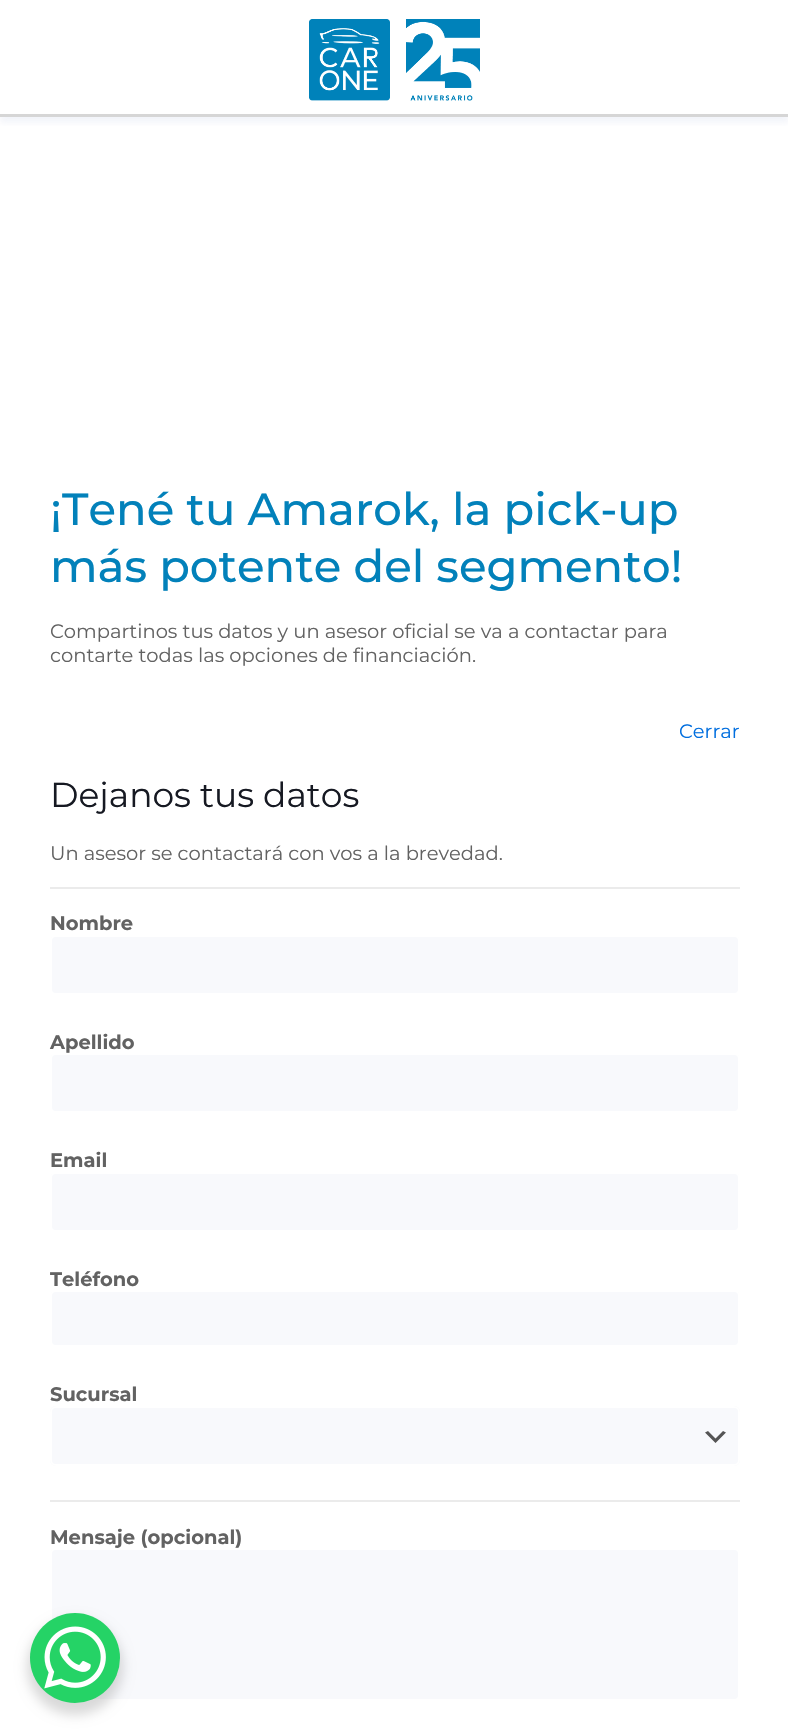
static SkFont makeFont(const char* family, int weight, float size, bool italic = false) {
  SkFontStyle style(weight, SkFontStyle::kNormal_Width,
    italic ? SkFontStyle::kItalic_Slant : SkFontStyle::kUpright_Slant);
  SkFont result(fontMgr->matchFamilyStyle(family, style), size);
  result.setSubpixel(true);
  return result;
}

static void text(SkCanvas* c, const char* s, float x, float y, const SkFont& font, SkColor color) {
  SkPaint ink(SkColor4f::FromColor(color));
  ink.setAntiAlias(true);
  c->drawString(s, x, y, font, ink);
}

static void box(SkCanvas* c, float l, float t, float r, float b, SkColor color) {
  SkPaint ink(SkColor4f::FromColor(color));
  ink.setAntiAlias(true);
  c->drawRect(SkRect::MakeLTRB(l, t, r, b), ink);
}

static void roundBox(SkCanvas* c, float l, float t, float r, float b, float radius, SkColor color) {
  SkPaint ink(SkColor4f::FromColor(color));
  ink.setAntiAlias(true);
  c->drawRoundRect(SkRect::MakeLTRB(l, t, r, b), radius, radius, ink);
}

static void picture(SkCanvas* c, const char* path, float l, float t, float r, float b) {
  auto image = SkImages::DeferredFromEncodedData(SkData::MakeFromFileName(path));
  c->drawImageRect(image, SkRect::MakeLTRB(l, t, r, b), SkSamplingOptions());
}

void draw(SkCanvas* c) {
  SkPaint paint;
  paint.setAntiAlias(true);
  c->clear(0xffffffff);
  c->save();
  c->clipRect(SkRect::MakeLTRB(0, 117, 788, 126));
  paint.setColor(0x29b2c0df);
  paint.setMaskFilter(SkMaskFilter::MakeBlur(kNormal_SkBlurStyle, 3));
  c->drawRect(SkRect::MakeLTRB(0, 21, 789, 123), paint);
  paint.setMaskFilter(nullptr);
  c->restore();
  box(c, 0, 114, 788, 117, 0xffd6d6d6);
  picture(c, "img_01.png", 309, 19, 480, 101);
  SkFont face1 = makeFont("Montserrat", 500, 45);
  text(c, "¡Tené tu Amarok, la pick-up", 50, 525, face1, 0xff0281ba);
  text(c, "más potente del segmento!", 50, 582, face1, 0xff0281ba);
  SkFont face2 = makeFont("Montserrat", 100, 19.5f);
  text(c, "Compartinos tus datos y un asesor oficial se va a contactar para", 50, 638, face2, 0xff626262);
  text(c, "contarte todas las opciones de financiación.", 50, 662, face2, 0xff626262);
  text(c, "Cerrar", 679, 738, face2, 0xff006edf);
  SkFont face3 = makeFont("Montserrat", 100, 34.5f);
  text(c, "Dejanos tus datos", 50, 807, face3, 0xff161922);
  text(c, "Un asesor se contactará con vos a la brevedad.", 50, 860, face2, 0xff626262);
  box(c, 50, 887, 740, 889, 0xffebebeb);
  SkFont face4 = makeFont("Montserrat", 700, 19.5f);
  text(c, "Nombre", 50, 930, face4, 0xff626262);
  paint.setColor(0xfff8f9fc);
  c->drawRoundRect(SkRect::MakeLTRB(51, 936, 739, 994), 5, 5, paint);
  paint.setStyle(SkPaint::kStroke_Style);
  paint.setStrokeWidth(2);
  paint.setColor(0xffffffff);
  c->drawRoundRect(SkRect::MakeLTRB(51, 936, 739, 994), 5, 5, paint);
  text(c, "Apellido", 50, 1049, face4, 0xff626262);
  paint.setStyle(SkPaint::kFill_Style);
  paint.setColor(0xfff8f9fc);
  c->drawRoundRect(SkRect::MakeLTRB(51, 1054, 739, 1112), 5, 5, paint);
  paint.setStyle(SkPaint::kStroke_Style);
  paint.setColor(0xffffffff);
  c->drawRoundRect(SkRect::MakeLTRB(51, 1054, 739, 1112), 5, 5, paint);
  text(c, "Email", 50, 1167, face4, 0xff626262);
  paint.setStyle(SkPaint::kFill_Style);
  paint.setColor(0xfff8f9fc);
  c->drawRoundRect(SkRect::MakeLTRB(51, 1173, 739, 1231), 5, 5, paint);
  paint.setStyle(SkPaint::kStroke_Style);
  paint.setColor(0xffffffff);
  c->drawRoundRect(SkRect::MakeLTRB(51, 1173, 739, 1231), 5, 5, paint);
  text(c, "Teléfono", 50, 1286, face4, 0xff626262);
  paint.setStyle(SkPaint::kFill_Style);
  paint.setColor(0xfff8f9fc);
  c->drawRoundRect(SkRect::MakeLTRB(51, 1291, 739, 1346), 5, 5, paint);
  paint.setStyle(SkPaint::kStroke_Style);
  paint.setColor(0xffffffff);
  c->drawRoundRect(SkRect::MakeLTRB(51, 1291, 739, 1346), 5, 5, paint);
  text(c, "Sucursal", 50, 1401, face4, 0xff626262);
  roundBox(c, 50, 1406, 740, 1466, 6, 0xfff8f9fc);
  paint.setStyle(SkPaint::kFill_Style);
  paint.setColor(0xff555555);
  c->drawPath(SkPathBuilder().moveTo(708, 1431).lineTo(715.5f, 1438.5f).lineTo(723, 1431).lineTo(726, 1432.5f).lineTo(715.5f, 1443).lineTo(705, 1432.5f).close().detach(), paint);
  paint.setStyle(SkPaint::kStroke_Style);
  paint.setColor(0xffffffff);
  c->drawRoundRect(SkRect::MakeLTRB(51, 1407, 739, 1465), 5, 5, paint);
  box(c, 50, 1500, 740, 1502, 0xffebebeb);
  text(c, "Mensaje (opcional)", 50, 1544, face4, 0xff626262);
  paint.setStyle(SkPaint::kFill_Style);
  paint.setColor(0xfff8f9fc);
  c->drawRoundRect(SkRect::MakeLTRB(51, 1549, 739, 1700), 5, 5, paint);
  paint.setStyle(SkPaint::kStroke_Style);
  paint.setColor(0xffffffff);
  c->drawRoundRect(SkRect::MakeLTRB(51, 1549, 739, 1700), 5, 5, paint);
  paint.setStyle(SkPaint::kFill_Style);
  paint.setColor(0x26000000);
  paint.setMaskFilter(SkMaskFilter::MakeBlur(kNormal_SkBlurStyle, 6));
  c->drawRoundRect(SkRect::MakeLTRB(27, 1619, 123, 1715), 48, 48, paint);
  paint.setMaskFilter(nullptr);
  paint.setColor(0xff25d366);
  c->drawCircle(75, 1658, 45, paint);
  picture(c, "img_02.png", 44, 1626, 106, 1689);
}
